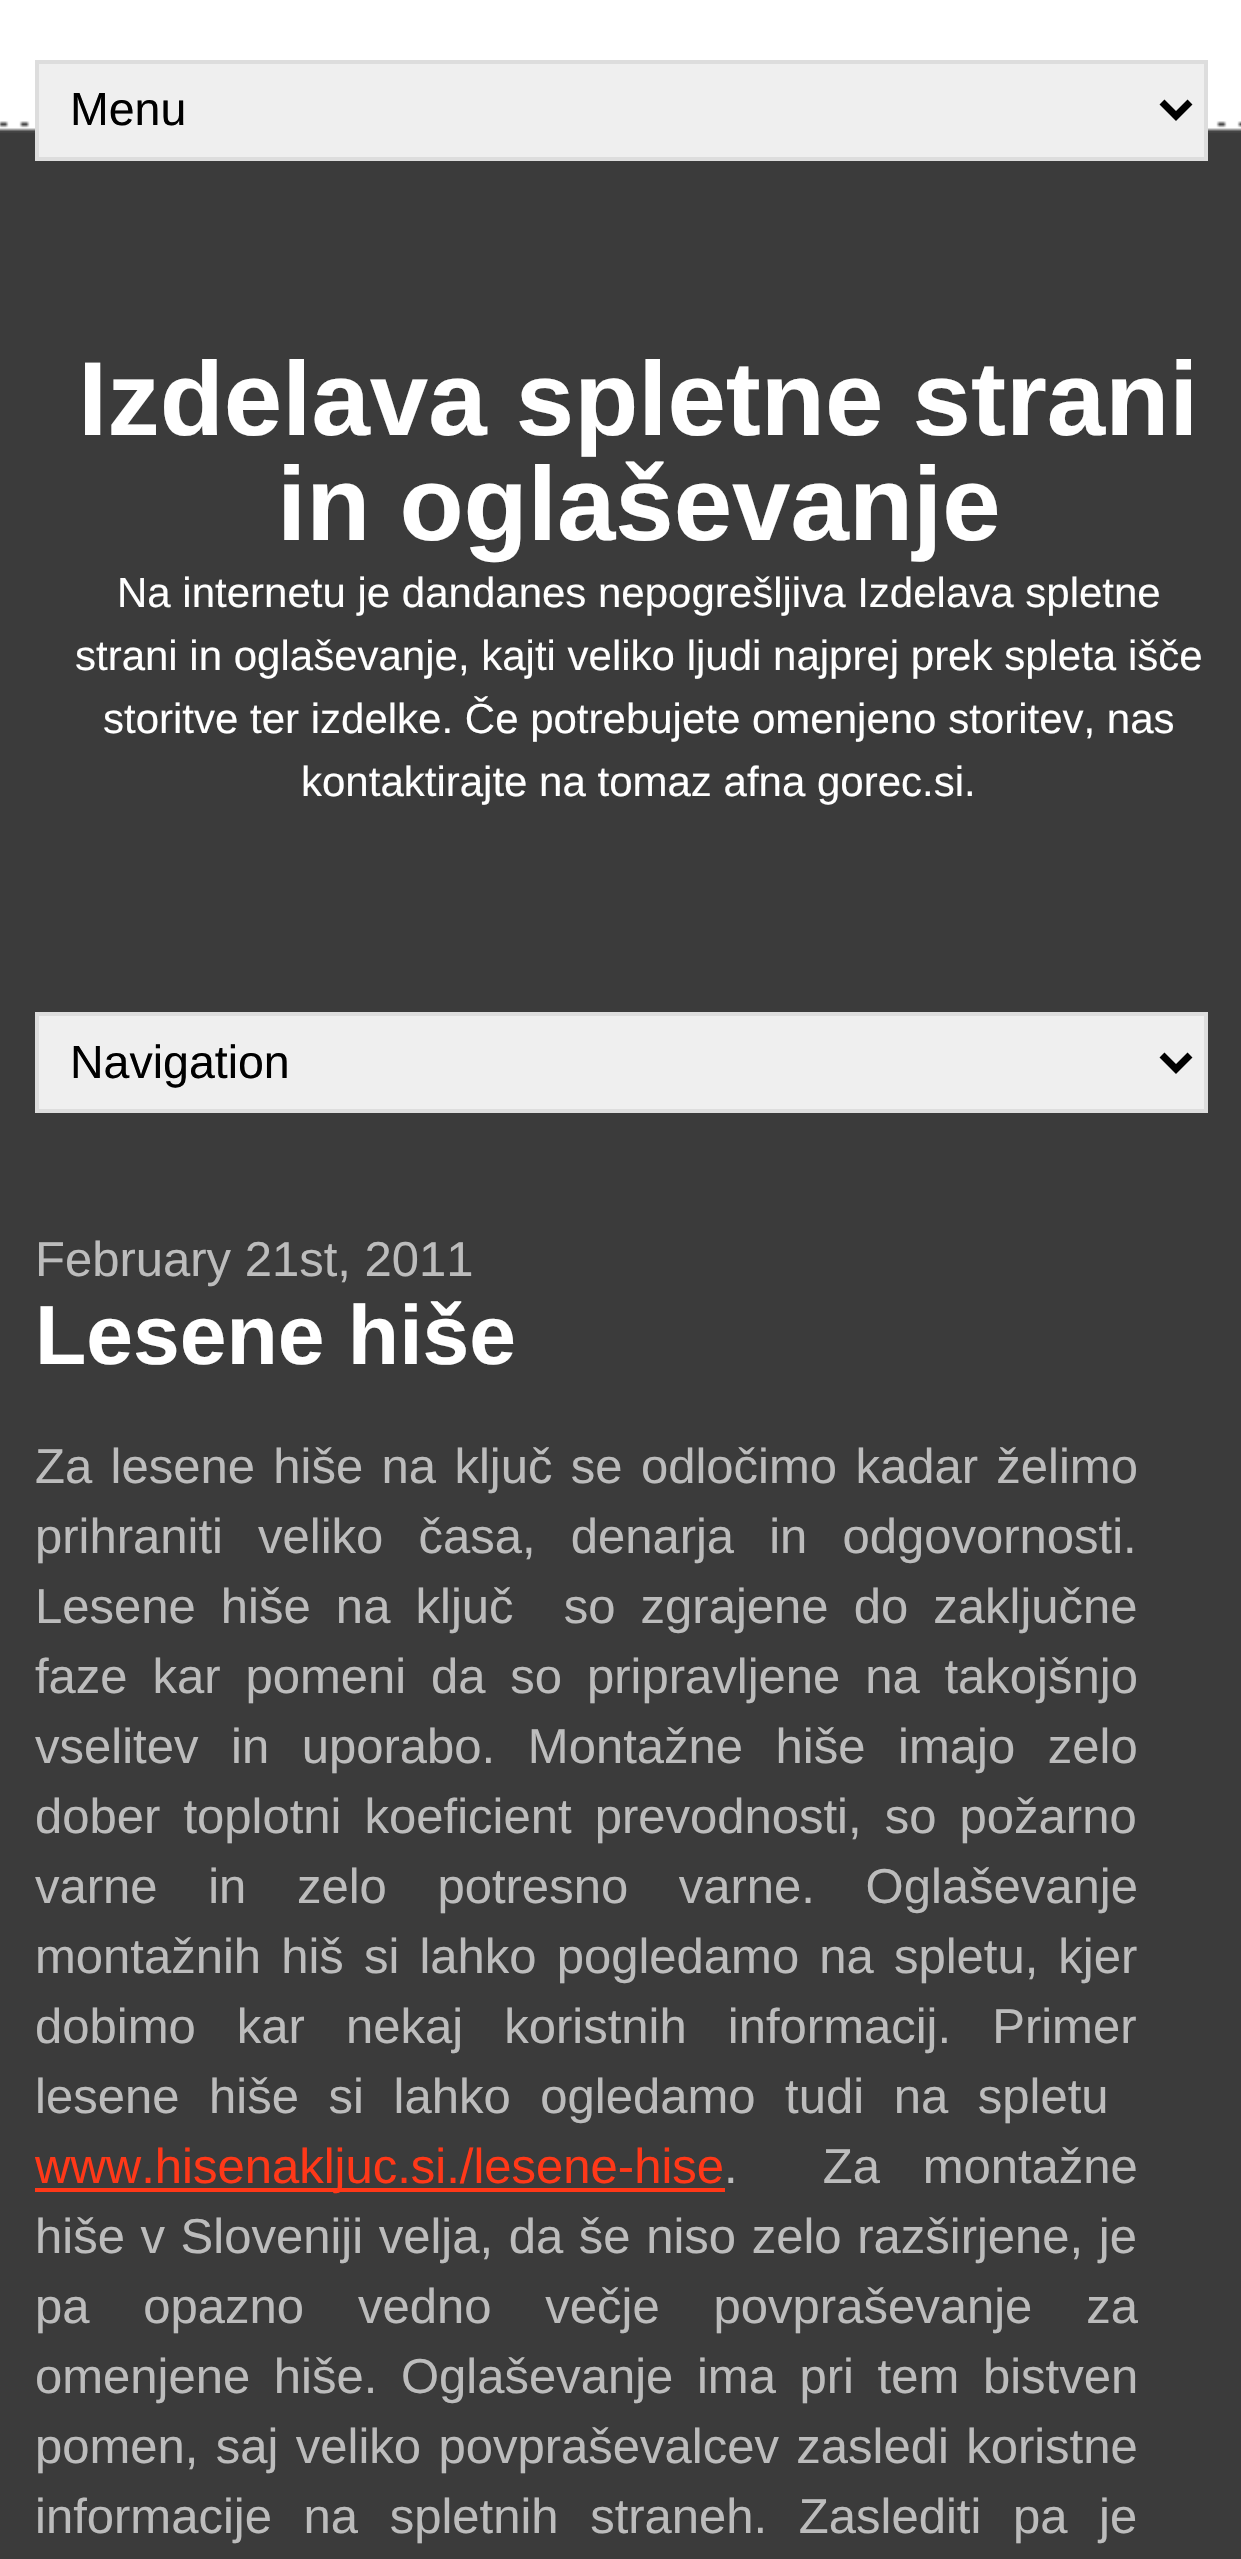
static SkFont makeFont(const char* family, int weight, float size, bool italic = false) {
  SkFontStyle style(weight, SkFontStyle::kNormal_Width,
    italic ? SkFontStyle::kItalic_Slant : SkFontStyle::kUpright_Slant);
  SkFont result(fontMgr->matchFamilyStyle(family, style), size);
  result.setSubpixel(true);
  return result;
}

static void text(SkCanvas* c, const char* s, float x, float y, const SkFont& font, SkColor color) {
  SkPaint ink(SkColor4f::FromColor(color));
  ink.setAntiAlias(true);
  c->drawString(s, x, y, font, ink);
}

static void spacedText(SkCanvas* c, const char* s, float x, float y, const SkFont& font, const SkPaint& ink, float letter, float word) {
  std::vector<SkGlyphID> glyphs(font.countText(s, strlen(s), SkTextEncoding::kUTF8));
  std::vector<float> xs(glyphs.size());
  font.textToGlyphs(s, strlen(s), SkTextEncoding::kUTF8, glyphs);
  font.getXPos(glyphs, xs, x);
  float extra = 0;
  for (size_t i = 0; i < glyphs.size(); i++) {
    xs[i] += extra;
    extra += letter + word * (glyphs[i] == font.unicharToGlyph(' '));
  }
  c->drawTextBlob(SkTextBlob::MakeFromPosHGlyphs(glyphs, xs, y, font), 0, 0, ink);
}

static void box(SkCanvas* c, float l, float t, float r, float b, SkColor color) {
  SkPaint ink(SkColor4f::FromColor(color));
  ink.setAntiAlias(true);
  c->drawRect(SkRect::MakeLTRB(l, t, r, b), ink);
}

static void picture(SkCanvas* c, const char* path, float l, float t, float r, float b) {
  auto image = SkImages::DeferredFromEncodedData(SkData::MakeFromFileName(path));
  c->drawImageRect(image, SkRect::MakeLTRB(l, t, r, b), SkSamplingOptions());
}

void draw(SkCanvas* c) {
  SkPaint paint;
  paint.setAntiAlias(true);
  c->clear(0xff3b3b3b);
  picture(c, "img_01.png", 0, 0, 1241, 133);
  paint.setColor(0xffefefef);
  c->drawRect(SkRect::MakeLTRB(37, 62, 1206, 159), paint);
  paint.setStyle(SkPaint::kStroke_Style);
  paint.setStrokeWidth(4);
  paint.setColor(0xffdddddd);
  c->drawRect(SkRect::MakeLTRB(37, 62, 1206, 159), paint);
  paint.setStrokeWidth(7);
  paint.setColor(0xff000000);
  c->drawPath(SkPathBuilder().moveTo(1162, 102).lineTo(1176, 116).lineTo(1190, 102).detach(), paint);
  SkFont face1 = makeFont("Liberation Sans", 400, 46.5f);
  text(c, "Menu", 70, 125, face1, 0xff000000);
  SkFont face2 = makeFont("Liberation Sans", 700, 105);
  text(c, "Izdelava spletne strani", 78, 435, face2, 0xffffffff);
  text(c, "in oglaševanje", 277, 540, face2, 0xffffffff);
  SkFont face3 = makeFont("Liberation Sans", 400, 42);
  text(c, "Na internetu je dandanes nepogrešljiva Izdelava spletne", 117, 607, face3, 0xffffffff);
  text(c, "strani in oglaševanje, kajti veliko ljudi najprej prek spleta išče", 75, 670, face3, 0xffffffff);
  text(c, "storitve ter izdelke. Če potrebujete omenjeno storitev, nas", 103, 733, face3, 0xffffffff);
  text(c, "kontaktirajte na tomaz afna gorec.si.", 301, 796, face3, 0xffffffff);
  paint.setStyle(SkPaint::kFill_Style);
  paint.setColor(0xffefefef);
  c->drawRect(SkRect::MakeLTRB(37, 1014, 1206, 1111), paint);
  paint.setStyle(SkPaint::kStroke_Style);
  paint.setStrokeWidth(4);
  paint.setColor(0xffdddddd);
  c->drawRect(SkRect::MakeLTRB(37, 1014, 1206, 1111), paint);
  paint.setStrokeWidth(7);
  paint.setColor(0xff000000);
  c->drawPath(SkPathBuilder().moveTo(1162, 1055).lineTo(1176, 1069).lineTo(1190, 1055).detach(), paint);
  text(c, "Navigation", 70, 1078, face1, 0xff000000);
  SkFont face4 = makeFont("Liberation Sans", 400, 49);
  text(c, "February 21st, 2011", 35, 1276, face4, 0xffbcbcbc);
  SkFont face5 = makeFont("Liberation Sans", 700, 84);
  text(c, "Lesene hiše", 35, 1364, face5, 0xffffffff);
  paint.setStyle(SkPaint::kFill_Style);
  paint.setColor(0xffbcbcbc);
  spacedText(c, "Za lesene hiše na ključ se odločimo kadar želimo", 35, 1483, face4, paint, 0, 4.75f);
  spacedText(c, "prihraniti veliko časa, denarja in odgovornosti.", 35, 1553, face4, paint, 0, 21.5f);
  spacedText(c, "Lesene hiše na ključ  so zgrajene do zaključne", 35, 1623, face4, paint, 0, 11.5f);
  spacedText(c, "faze kar pomeni da so pripravljene na takojšnjo", 35, 1693, face4, paint, 0, 11.25f);
  spacedText(c, "vselitev in uporabo. Montažne hiše imajo zelo", 35, 1763, face4, paint, 0, 19);
  spacedText(c, "dober toplotni koeficient prevodnosti, so požarno", 35, 1833, face4, paint, 0, 9.5f);
  spacedText(c, "varne in zelo potresno varne. Oglaševanje", 35, 1903, face4, paint, 0, 37);
  spacedText(c, "montažnih hiš si lahko pogledamo na spletu, kjer", 35, 1973, face4, paint, 0, 6.5f);
  spacedText(c, "dobimo kar nekaj koristnih informacij. Primer", 35, 2043, face4, paint, 0, 27.5f);
  spacedText(c, "lesene hiše si lahko ogledamo tudi na spletu", 35, 2113, face4, paint, 0, 16);
  box(c, 35, 2188, 725, 2192, 0xffff3818);
  text(c, "www.hisenakljuc.si./lesene-hise", 35, 2183, face4, 0xffff3818);
  spacedText(c, ".  Za montažne", 724, 2183, face4, paint, 0, 29);
  spacedText(c, "hiše v Sloveniji velja, da še niso zelo razširjene, je", 35, 2253, face4, paint, 0, 2);
  spacedText(c, "pa opazno vedno večje povpraševanje za", 35, 2323, face4, paint, 0, 40.25f);
  spacedText(c, "omenjene hiše. Oglaševanje ima pri tem bistven", 35, 2393, face4, paint, 0, 10);
  spacedText(c, "pomen, saj veliko povpraševalcev zasledi koristne", 35, 2463, face4, paint, 0, 3.75f);
  spacedText(c, "informacije na spletnih straneh. Zaslediti pa je", 35, 2533, face4, paint, 0, 18);
}
